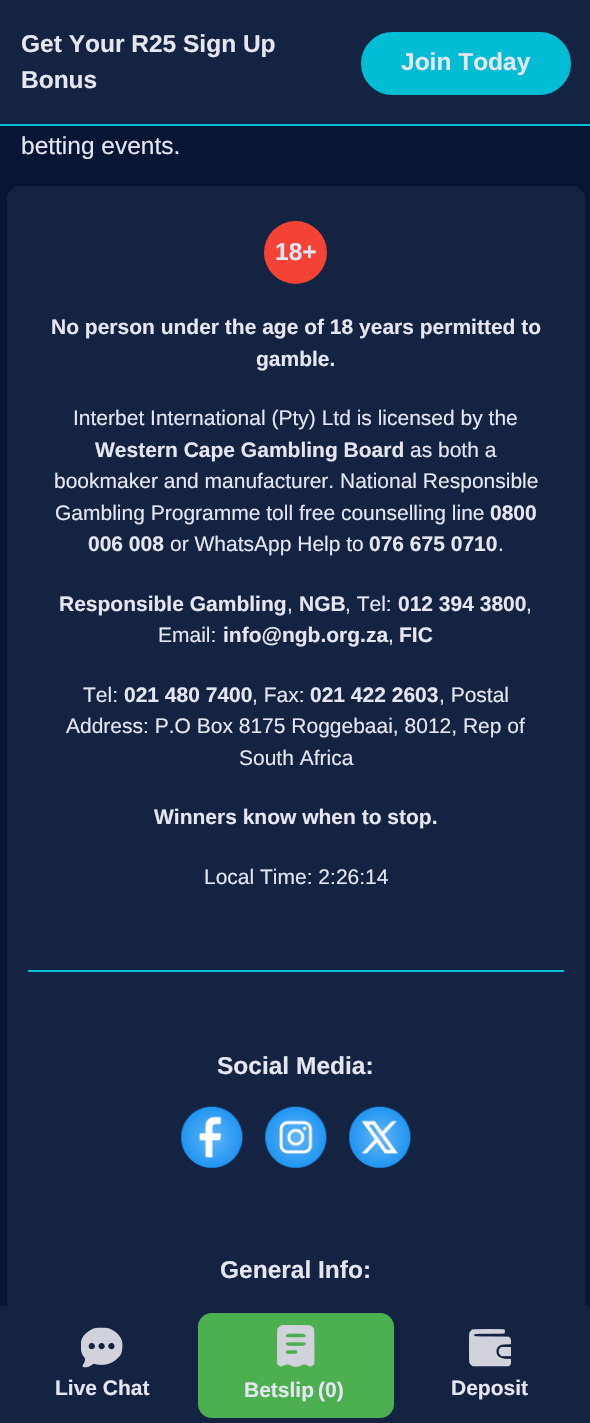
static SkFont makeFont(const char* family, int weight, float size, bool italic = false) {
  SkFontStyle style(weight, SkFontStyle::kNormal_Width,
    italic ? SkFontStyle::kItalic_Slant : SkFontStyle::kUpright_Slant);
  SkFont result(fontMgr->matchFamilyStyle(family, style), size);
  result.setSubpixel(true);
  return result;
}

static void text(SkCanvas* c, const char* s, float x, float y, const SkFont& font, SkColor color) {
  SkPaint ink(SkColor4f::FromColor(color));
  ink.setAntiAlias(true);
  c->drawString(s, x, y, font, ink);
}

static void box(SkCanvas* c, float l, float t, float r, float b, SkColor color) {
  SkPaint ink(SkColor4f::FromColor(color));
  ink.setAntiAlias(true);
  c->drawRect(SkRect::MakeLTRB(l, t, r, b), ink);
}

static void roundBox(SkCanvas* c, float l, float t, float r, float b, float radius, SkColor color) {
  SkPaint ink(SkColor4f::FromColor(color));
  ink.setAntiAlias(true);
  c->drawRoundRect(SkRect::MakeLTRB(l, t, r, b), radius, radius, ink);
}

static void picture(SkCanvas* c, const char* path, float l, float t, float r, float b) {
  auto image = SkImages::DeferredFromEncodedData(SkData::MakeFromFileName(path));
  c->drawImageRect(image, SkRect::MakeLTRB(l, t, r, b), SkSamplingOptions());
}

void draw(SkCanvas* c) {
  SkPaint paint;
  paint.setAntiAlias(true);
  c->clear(0xff081535);
  box(c, 0, 0, 590, 124, 0xff142341);
  box(c, 0, 124, 590, 126, 0xff00bdd4);
  SkFont face1 = makeFont("Liberation Sans", 700, 24.5f);
  text(c, "Get Your R25 Sign Up", 21, 52, face1, 0xffe6e6f0);
  text(c, "Bonus", 21, 88, face1, 0xffe6e6f0);
  paint.setColor(0xff00bdd4);
  c->drawRoundRect(SkRect::MakeLTRB(362, 33, 570, 94), 30.5f, 30.5f, paint);
  paint.setStyle(SkPaint::kStroke_Style);
  paint.setStrokeWidth(2);
  c->drawRoundRect(SkRect::MakeLTRB(362, 33, 570, 94), 30.5f, 30.5f, paint);
  text(c, "Join Today", 401, 70, face1, 0xffe6e6f0);
  SkFont face2 = makeFont("Liberation Sans", 400, 24.5f);
  text(c, "betting events.", 21, 154, face2, 0xffe6e6f0);
  roundBox(c, 7, 186, 585, 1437, 14, 0xff142341);
  paint.setStyle(SkPaint::kFill_Style);
  paint.setColor(0xfff44336);
  c->drawCircle(295.5f, 252.5f, 31.5f, paint);
  text(c, "18+", 275, 260, face1, 0xffe6e6f0);
  SkFont face3 = makeFont("Liberation Sans", 700, 21);
  text(c, "No person under the age of 18 years permitted to", 51, 334, face3, 0xffe6e6f0);
  text(c, "gamble.", 256, 366, face3, 0xffe6e6f0);
  SkFont face4 = makeFont("Liberation Sans", 400, 21);
  text(c, "Interbet International (Pty) Ltd is licensed by the", 73, 425, face4, 0xffe6e6f0);
  text(c, "Western Cape Gambling Board", 95, 457, face3, 0xffe6e6f0);
  text(c, "as both a", 410, 457, face4, 0xffe6e6f0);
  text(c, "bookmaker and manufacturer. National Responsible", 54, 488, face4, 0xffe6e6f0);
  text(c, "Gambling Programme toll free counselling line", 55, 520, face4, 0xffe6e6f0);
  text(c, "0800", 490, 520, face3, 0xffe6e6f0);
  text(c, "006 008", 88, 551, face3, 0xffe6e6f0);
  text(c, "or WhatsApp Help to", 170, 551, face4, 0xffe6e6f0);
  text(c, "076 675 0710", 369, 551, face3, 0xffe6e6f0);
  text(c, ".", 498, 551, face4, 0xffe6e6f0);
  text(c, "Responsible Gambling", 59, 611, face3, 0xffe6e6f0);
  text(c, ",", 287, 611, face4, 0xffe6e6f0);
  text(c, "NGB", 299, 611, face3, 0xffe6e6f0);
  text(c, ", Tel:", 345, 611, face4, 0xffe6e6f0);
  text(c, "012 394 3800", 398, 611, face3, 0xffe6e6f0);
  text(c, ",", 526, 611, face4, 0xffe6e6f0);
  text(c, "Email:", 158, 642, face4, 0xffe6e6f0);
  text(c, "info@ngb.org.za", 223, 642, face3, 0xffe6e6f0);
  text(c, ",", 388, 642, face4, 0xffe6e6f0);
  text(c, "FIC", 399, 642, face3, 0xffe6e6f0);
  text(c, "Tel:", 83, 702, face4, 0xffe6e6f0);
  text(c, "021 480 7400", 124, 702, face3, 0xffe6e6f0);
  text(c, ", Fax:", 252, 702, face4, 0xffe6e6f0);
  text(c, "021 422 2603", 310, 702, face3, 0xffe6e6f0);
  text(c, ", Postal", 439, 702, face4, 0xffe6e6f0);
  text(c, "Address: P.O Box 8175 Roggebaai, 8012, Rep of", 66, 733, face4, 0xffe6e6f0);
  text(c, "South Africa", 239, 765, face4, 0xffe6e6f0);
  text(c, "Winners know when to stop.", 154, 824, face3, 0xffe6e6f0);
  text(c, "Local Time: 2:26:14", 204, 884, face4, 0xffe6e6f0);
  box(c, 28, 970, 564, 972, 0xff00bdd4);
  text(c, "Social Media:", 217, 1074, face1, 0xffe6e6f0);
  picture(c, "img_01.png", 181, 1106, 243, 1168);
  picture(c, "img_02.png", 265, 1106, 327, 1168);
  picture(c, "img_03.png", 349, 1106, 411, 1168);
  text(c, "General Info:", 220, 1278, face1, 0xffe6e6f0);
  box(c, 0, 1306, 590, 1423, 0xff142341);
  picture(c, "img_04.png", 81, 1327, 123, 1368);
  text(c, "Live Chat", 55, 1395, face3, 0xffe6e6f0);
  paint.setColor(0xff4caf50);
  c->drawRoundRect(SkRect::MakeLTRB(200, 1315, 392, 1416), 12, 12, paint);
  paint.setStyle(SkPaint::kStroke_Style);
  paint.setStrokeWidth(4);
  c->drawRoundRect(SkRect::MakeLTRB(200, 1315, 392, 1416), 12, 12, paint);
  picture(c, "img_05.png", 277, 1325, 315, 1367);
  text(c, "Betslip", 244, 1397, face3, 0xffe6e6f0);
  text(c, "(0)", 318, 1397, face3, 0xffe6e6f0);
  picture(c, "img_06.png", 469, 1329, 511, 1367);
  text(c, "Deposit", 451, 1395, face3, 0xffe6e6f0);
}
